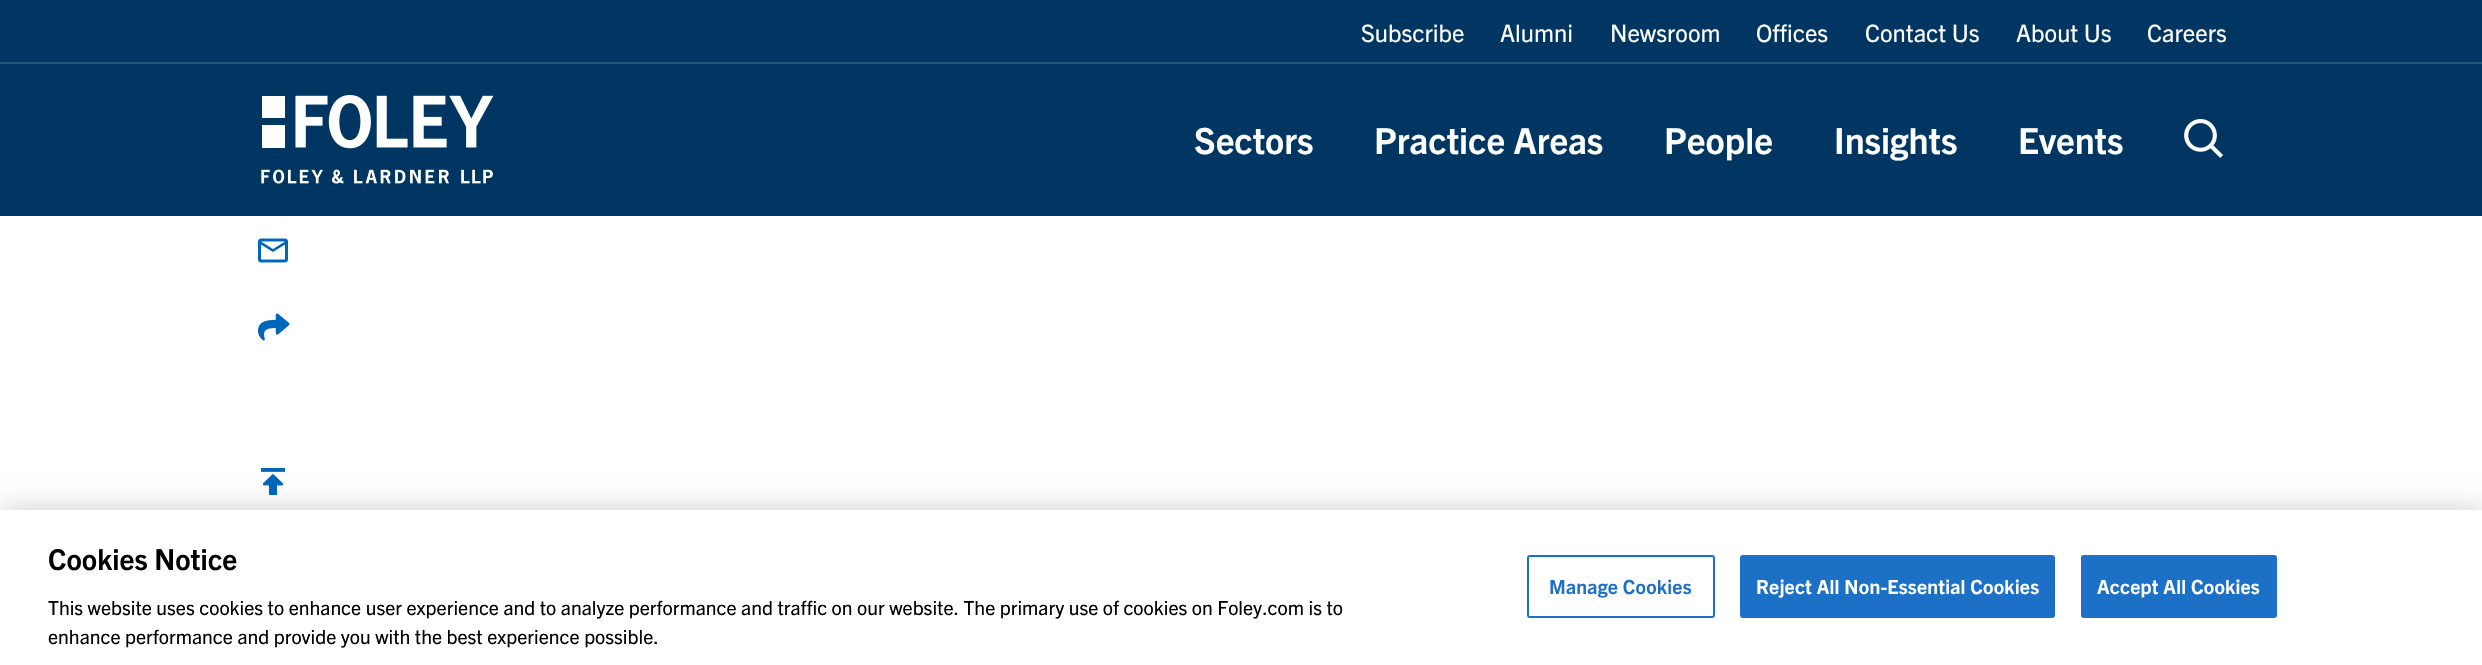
static SkFont makeFont(const char* family, int weight, float size, bool italic = false) {
  SkFontStyle style(weight, SkFontStyle::kNormal_Width,
    italic ? SkFontStyle::kItalic_Slant : SkFontStyle::kUpright_Slant);
  SkFont result(fontMgr->matchFamilyStyle(family, style), size);
  result.setSubpixel(true);
  return result;
}

static void text(SkCanvas* c, const char* s, float x, float y, const SkFont& font, SkColor color) {
  SkPaint ink(SkColor4f::FromColor(color));
  ink.setAntiAlias(true);
  c->drawString(s, x, y, font, ink);
}

static void spacedText(SkCanvas* c, const char* s, float x, float y, const SkFont& font, const SkPaint& ink, float letter, float word) {
  std::vector<SkGlyphID> glyphs(font.countText(s, strlen(s), SkTextEncoding::kUTF8));
  std::vector<float> xs(glyphs.size());
  font.textToGlyphs(s, strlen(s), SkTextEncoding::kUTF8, glyphs);
  font.getXPos(glyphs, xs, x);
  float extra = 0;
  for (size_t i = 0; i < glyphs.size(); i++) {
    xs[i] += extra;
    extra += letter + word * (glyphs[i] == font.unicharToGlyph(' '));
  }
  c->drawTextBlob(SkTextBlob::MakeFromPosHGlyphs(glyphs, xs, y, font), 0, 0, ink);
}

static void box(SkCanvas* c, float l, float t, float r, float b, SkColor color) {
  SkPaint ink(SkColor4f::FromColor(color));
  ink.setAntiAlias(true);
  c->drawRect(SkRect::MakeLTRB(l, t, r, b), ink);
}

static void picture(SkCanvas* c, const char* path, float l, float t, float r, float b) {
  auto image = SkImages::DeferredFromEncodedData(SkData::MakeFromFileName(path));
  c->drawImageRect(image, SkRect::MakeLTRB(l, t, r, b), SkSamplingOptions());
}

void draw(SkCanvas* c) {
  SkPaint paint;
  paint.setAntiAlias(true);
  c->clear(0xffffffff);
  box(c, 0, 0, 2482, 216, 0xff003661);
  SkFont face1 = makeFont("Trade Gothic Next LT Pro", 400, 24);
  text(c, "Subscribe", 1361, 42, face1, 0xffffffff);
  text(c, "Alumni", 1500, 42, face1, 0xffffffff);
  text(c, "Newsroom", 1610, 42, face1, 0xffffffff);
  text(c, "Offices", 1756, 42, face1, 0xffffffff);
  text(c, "Contact Us", 1865, 42, face1, 0xffffffff);
  text(c, "About Us", 2016, 42, face1, 0xffffffff);
  text(c, "Careers", 2147, 42, face1, 0xffffffff);
  box(c, 0, 62, 2482, 64, 0xff265479);
  picture(c, "img_01.png", 261, 95, 494, 184);
  SkFont face2 = makeFont("Trade Gothic Next LT Pro", 700, 36);
  text(c, "Sectors", 1194, 154, face2, 0xffffffff);
  text(c, "Practice Areas", 1374, 154, face2, 0xffffffff);
  text(c, "People", 1664, 154, face2, 0xffffffff);
  text(c, "Insights", 1834, 154, face2, 0xffffffff);
  text(c, "Events", 2018, 154, face2, 0xffffffff);
  picture(c, "img_02.png", 2184, 119, 2223, 158);
  picture(c, "img_03.png", 258, 238, 288, 263);
  picture(c, "img_04.png", 258, 313, 290, 341);
  picture(c, "img_05.png", 261, 468, 285, 495);
  paint.setColor(0x33000000);
  paint.setMaskFilter(SkMaskFilter::MakeBlur(kNormal_SkBlurStyle, 13.5f));
  c->drawRect(SkRect::MakeLTRB(0, 510, 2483, 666), paint);
  paint.setMaskFilter(nullptr);
  box(c, 0, 510, 2482, 665, 0xffffffff);
  SkFont face3 = makeFont("Trade Gothic Next LT Pro", 700, 28.75f);
  text(c, "Cookies Notice", 48, 570, face3, 0xff000000);
  SkFont face4 = makeFont("Trade Gothic Next LT Pro", 400, 19.5f);
  text(c, "This website uses cookies to enhance user experience and to analyze performance and traffic on our website. The primary use of cookies on Foley.com is to", 48, 615, face4, 0xff000000);
  text(c, "enhance performance and provide you with the best experience possible.", 48, 644, face4, 0xff000000);
  paint.setStyle(SkPaint::kStroke_Style);
  paint.setStrokeWidth(2);
  paint.setColor(0xff1c70c6);
  c->drawRoundRect(SkRect::MakeLTRB(1528, 556, 1714, 617), 2, 2, paint);
  SkFont face5 = makeFont("Trade Gothic Next LT Pro", 700, 19.5f);
  paint.setStyle(SkPaint::kFill_Style);
  spacedText(c, "Manage Cookies", 1549, 594, face5, paint, 0.2f, 0);
  c->drawRoundRect(SkRect::MakeLTRB(1741, 556, 2054, 617), 2, 2, paint);
  paint.setStyle(SkPaint::kStroke_Style);
  c->drawRoundRect(SkRect::MakeLTRB(1741, 556, 2054, 617), 2, 2, paint);
  paint.setStyle(SkPaint::kFill_Style);
  paint.setColor(0xffffffff);
  spacedText(c, "Reject All Non-Essential Cookies", 1756, 594, face5, paint, 0.2f, 0);
  paint.setColor(0xff1c70c6);
  c->drawRoundRect(SkRect::MakeLTRB(2082, 556, 2276, 617), 2, 2, paint);
  paint.setStyle(SkPaint::kStroke_Style);
  c->drawRoundRect(SkRect::MakeLTRB(2082, 556, 2276, 617), 2, 2, paint);
  paint.setStyle(SkPaint::kFill_Style);
  paint.setColor(0xffffffff);
  spacedText(c, "Accept All Cookies", 2097, 594, face5, paint, 0.2f, 0);
}
